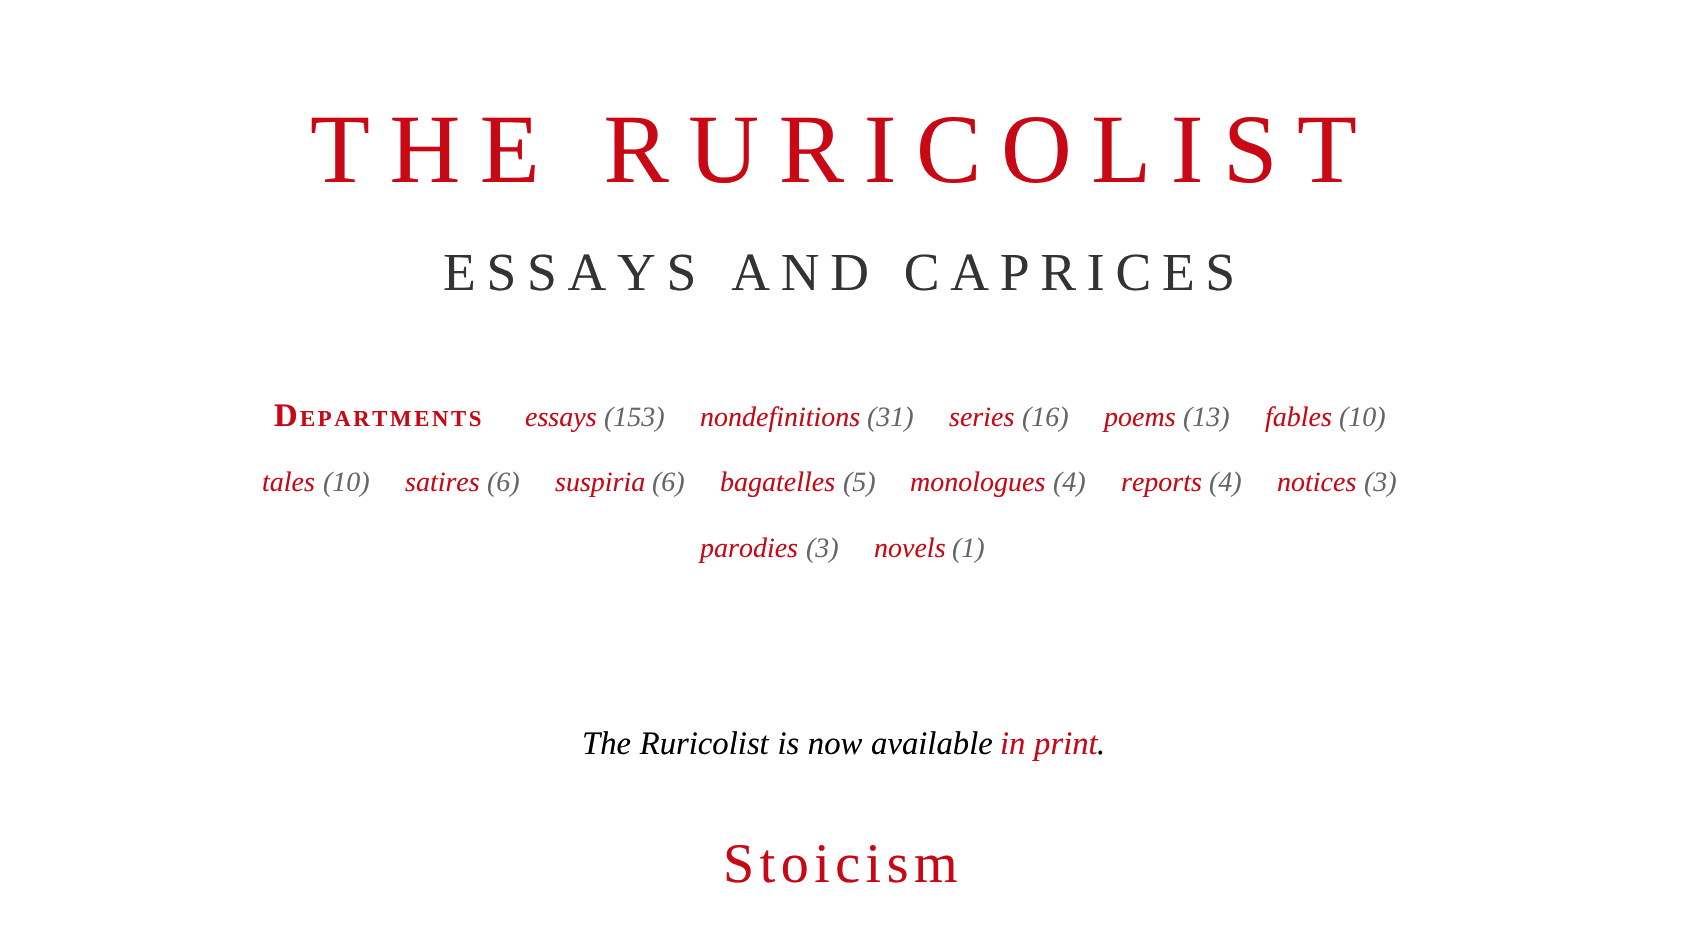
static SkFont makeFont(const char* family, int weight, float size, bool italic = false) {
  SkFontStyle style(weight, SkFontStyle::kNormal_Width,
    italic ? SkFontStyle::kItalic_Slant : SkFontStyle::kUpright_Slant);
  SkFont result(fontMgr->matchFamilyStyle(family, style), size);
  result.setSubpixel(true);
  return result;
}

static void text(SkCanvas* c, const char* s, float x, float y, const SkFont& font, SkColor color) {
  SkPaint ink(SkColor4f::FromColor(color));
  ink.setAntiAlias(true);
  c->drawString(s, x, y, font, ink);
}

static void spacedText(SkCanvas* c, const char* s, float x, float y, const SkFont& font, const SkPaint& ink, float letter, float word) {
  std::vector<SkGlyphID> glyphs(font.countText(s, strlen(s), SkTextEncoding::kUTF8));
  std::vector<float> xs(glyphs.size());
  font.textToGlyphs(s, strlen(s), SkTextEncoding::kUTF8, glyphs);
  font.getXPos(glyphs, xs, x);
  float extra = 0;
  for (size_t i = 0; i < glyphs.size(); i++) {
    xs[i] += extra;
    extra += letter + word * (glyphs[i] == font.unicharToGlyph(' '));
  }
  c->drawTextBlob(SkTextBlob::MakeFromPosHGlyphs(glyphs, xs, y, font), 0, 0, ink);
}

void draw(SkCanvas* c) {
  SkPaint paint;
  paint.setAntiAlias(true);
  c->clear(0xffffffff);
  SkFont face1 = makeFont("Liberation Serif", 400, 98);
  paint.setColor(0xffc80815);
  spacedText(c, "THE RURICOLIST", 310, 182, face1, paint, 19.6f, 0);
  SkFont face2 = makeFont("Liberation Serif", 400, 53.6f);
  paint.setColor(0xff333333);
  spacedText(c, "ESSAYS AND CAPRICES", 443, 290, face2, paint, 10.75f, 0);
  SkFont face3 = makeFont("Liberation Serif", 700, 32.7f);
  paint.setColor(0xffc80815);
  spacedText(c, "D", 274, 426, face3, paint, 2.6f, 0);
  SkFont face4 = makeFont("Liberation Serif", 400, 28, true);
  text(c, "essays", 525, 426, face4, 0xffc80815);
  text(c, "(153)", 604, 426, face4, 0xff666666);
  text(c, "nondefinitions", 700, 426, face4, 0xffc80815);
  text(c, "(31)", 867, 426, face4, 0xff666666);
  text(c, "series", 949, 426, face4, 0xffc80815);
  text(c, "(16)", 1022, 426, face4, 0xff666666);
  text(c, "poems", 1104, 426, face4, 0xffc80815);
  text(c, "(13)", 1183, 426, face4, 0xff666666);
  text(c, "fables", 1265, 426, face4, 0xffc80815);
  text(c, "(10)", 1339, 426, face4, 0xff666666);
  text(c, "tales", 262, 491, face4, 0xffc80815);
  text(c, "(10)", 323, 491, face4, 0xff666666);
  text(c, "satires", 405, 491, face4, 0xffc80815);
  text(c, "(6)", 487, 491, face4, 0xff666666);
  text(c, "suspiria", 555, 491, face4, 0xffc80815);
  text(c, "(6)", 652, 491, face4, 0xff666666);
  text(c, "bagatelles", 720, 491, face4, 0xffc80815);
  text(c, "(5)", 843, 491, face4, 0xff666666);
  text(c, "monologues", 910, 491, face4, 0xffc80815);
  text(c, "(4)", 1053, 491, face4, 0xff666666);
  text(c, "reports", 1121, 491, face4, 0xffc80815);
  text(c, "(4)", 1209, 491, face4, 0xff666666);
  text(c, "notices", 1277, 491, face4, 0xffc80815);
  text(c, "(3)", 1364, 491, face4, 0xff666666);
  text(c, "parodies", 700, 557, face4, 0xffc80815);
  text(c, "(3)", 806, 557, face4, 0xff666666);
  text(c, "novels", 874, 557, face4, 0xffc80815);
  text(c, "(1)", 952, 557, face4, 0xff666666);
  SkFont face5 = makeFont("Liberation Serif", 700, 22.75f);
  spacedText(c, "EPARTMENTS", 300, 426, face5, paint, 2.6f, 0);
  SkFont face6 = makeFont("Liberation Serif", 400, 32.7f, true);
  paint.setColor(0xff000000);
  spacedText(c, "The Ruricolist is now available", 582, 754, face6, paint, 0, 0.5f);
  paint.setColor(0xffc80815);
  spacedText(c, "in print", 1000, 754, face6, paint, 0, 0.5f);
  text(c, ".", 1097, 754, face6, 0xff000000);
  SkFont face7 = makeFont("Liberation Serif", 400, 56);
  spacedText(c, "Stoicism", 723, 882, face7, paint, 5.5f, 0);
}
